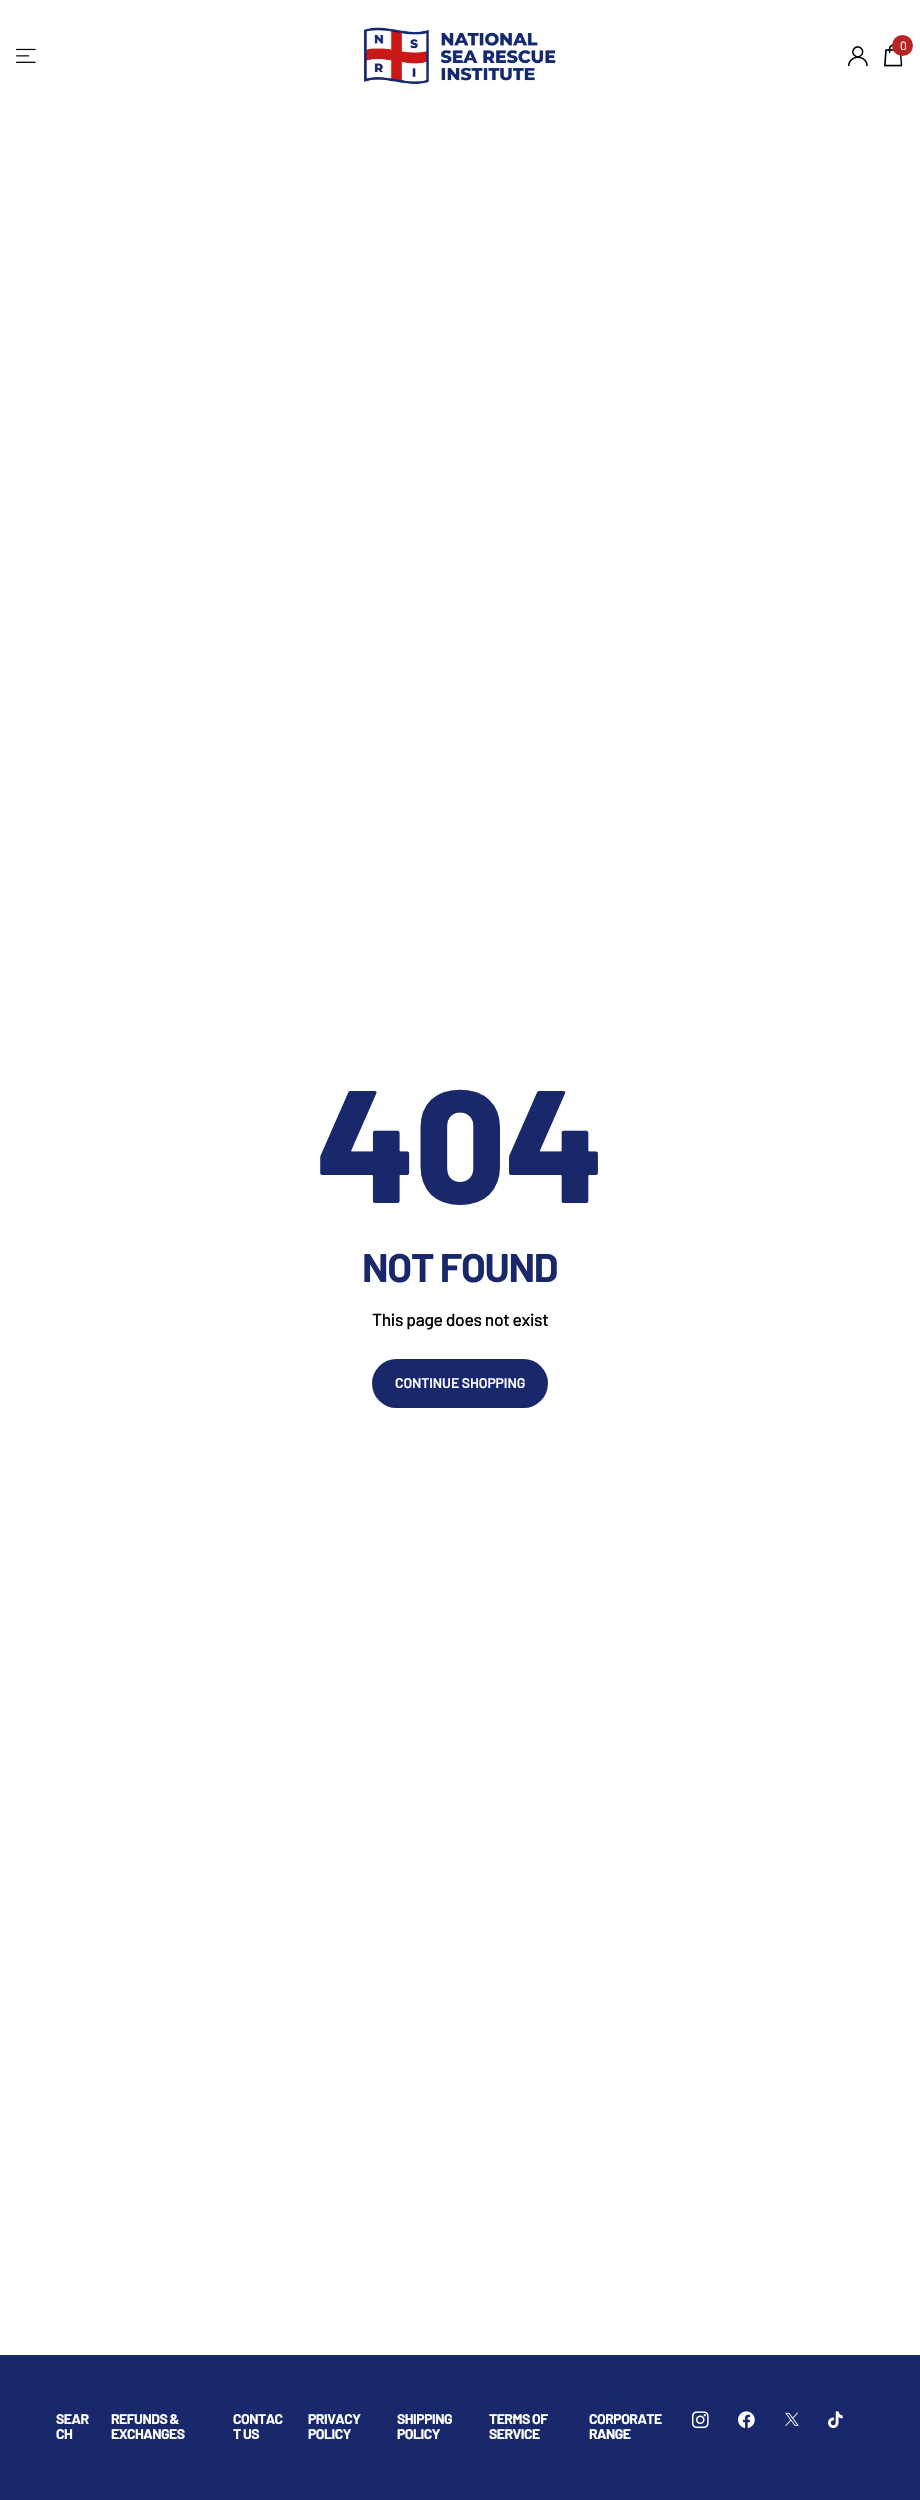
static SkFont makeFont(const char* family, int weight, float size, bool italic = false) {
  SkFontStyle style(weight, SkFontStyle::kNormal_Width,
    italic ? SkFontStyle::kItalic_Slant : SkFontStyle::kUpright_Slant);
  SkFont result(fontMgr->matchFamilyStyle(family, style), size);
  result.setSubpixel(true);
  return result;
}

static void text(SkCanvas* c, const char* s, float x, float y, const SkFont& font, SkColor color) {
  SkPaint ink(SkColor4f::FromColor(color));
  ink.setAntiAlias(true);
  c->drawString(s, x, y, font, ink);
}

static void spacedText(SkCanvas* c, const char* s, float x, float y, const SkFont& font, const SkPaint& ink, float letter, float word) {
  std::vector<SkGlyphID> glyphs(font.countText(s, strlen(s), SkTextEncoding::kUTF8));
  std::vector<float> xs(glyphs.size());
  font.textToGlyphs(s, strlen(s), SkTextEncoding::kUTF8, glyphs);
  font.getXPos(glyphs, xs, x);
  float extra = 0;
  for (size_t i = 0; i < glyphs.size(); i++) {
    xs[i] += extra;
    extra += letter + word * (glyphs[i] == font.unicharToGlyph(' '));
  }
  c->drawTextBlob(SkTextBlob::MakeFromPosHGlyphs(glyphs, xs, y, font), 0, 0, ink);
}

static void box(SkCanvas* c, float l, float t, float r, float b, SkColor color) {
  SkPaint ink(SkColor4f::FromColor(color));
  ink.setAntiAlias(true);
  c->drawRect(SkRect::MakeLTRB(l, t, r, b), ink);
}

static void roundBox(SkCanvas* c, float l, float t, float r, float b, float radius, SkColor color) {
  SkPaint ink(SkColor4f::FromColor(color));
  ink.setAntiAlias(true);
  c->drawRoundRect(SkRect::MakeLTRB(l, t, r, b), radius, radius, ink);
}

static void picture(SkCanvas* c, const char* path, float l, float t, float r, float b) {
  auto image = SkImages::DeferredFromEncodedData(SkData::MakeFromFileName(path));
  c->drawImageRect(image, SkRect::MakeLTRB(l, t, r, b), SkSamplingOptions());
}

void draw(SkCanvas* c) {
  SkPaint paint;
  paint.setAntiAlias(true);
  c->clear(0xffffffff);
  picture(c, "img_01.png", 363, 27, 556, 84);
  picture(c, "img_02.png", 848, 46, 868, 67);
  picture(c, "img_03.png", 884, 44, 903, 67);
  paint.setColor(0xffb82525);
  c->drawCircle(902.5f, 45.5f, 10.5f, paint);
  SkFont face1 = makeFont("Barlow", 400, 12);
  text(c, "0", 900, 50, face1, 0xffffffff);
  picture(c, "img_04.png", 16, 48, 36, 63);
  SkFont face2 = makeFont("Barlow", 800, 160);
  paint.setColor(0xff19286b);
  spacedText(c, "404", 316, 1203, face2, paint, -1.25f, 0);
  SkFont face3 = makeFont("Barlow", 700, 40);
  spacedText(c, "NOT FOUND", 362, 1282, face3, paint, -1.25f, 0);
  SkFont face4 = makeFont("Barlow", 500, 17.5f);
  paint.setColor(0xff000000);
  spacedText(c, "This page does not exist", 372, 1326, face4, paint, -0.35f, 0);
  roundBox(c, 372, 1359, 548, 1408, 24.5f, 0xff19286b);
  SkFont face5 = makeFont("Barlow", 600, 14);
  paint.setColor(0xffffffff);
  spacedText(c, "CONTINUE SHOPPING", 395, 1388, face5, paint, -0.1f, 0);
  box(c, 0, 2355, 920, 2500, 0xff19286b);
  SkFont face6 = makeFont("Barlow", 700, 14);
  spacedText(c, "SEAR", 56, 2424, face6, paint, -0.5f, 0);
  spacedText(c, "CH", 56, 2439, face6, paint, -0.5f, 0);
  spacedText(c, "REFUNDS &", 111, 2424, face6, paint, -0.5f, 0);
  spacedText(c, "EXCHANGES", 111, 2439, face6, paint, -0.5f, 0);
  spacedText(c, "CONTAC", 233, 2424, face6, paint, -0.5f, 0);
  spacedText(c, "T US", 233, 2439, face6, paint, -0.5f, 0);
  spacedText(c, "PRIVACY", 308, 2424, face6, paint, -0.5f, 0);
  spacedText(c, "POLICY", 308, 2439, face6, paint, -0.5f, 0);
  spacedText(c, "SHIPPING", 397, 2424, face6, paint, -0.5f, 0);
  spacedText(c, "POLICY", 397, 2439, face6, paint, -0.5f, 0);
  spacedText(c, "TERMS OF", 489, 2424, face6, paint, -0.5f, 0);
  spacedText(c, "SERVICE", 489, 2439, face6, paint, -0.5f, 0);
  spacedText(c, "CORPORATE", 589, 2424, face6, paint, -0.5f, 0);
  spacedText(c, "RANGE", 589, 2439, face6, paint, -0.5f, 0);
  picture(c, "img_05.png", 692, 2411, 709, 2429);
  picture(c, "img_06.png", 738, 2411, 755, 2428);
  picture(c, "img_07.png", 785, 2412, 799, 2426);
  picture(c, "img_08.png", 828, 2411, 843, 2428);
}
